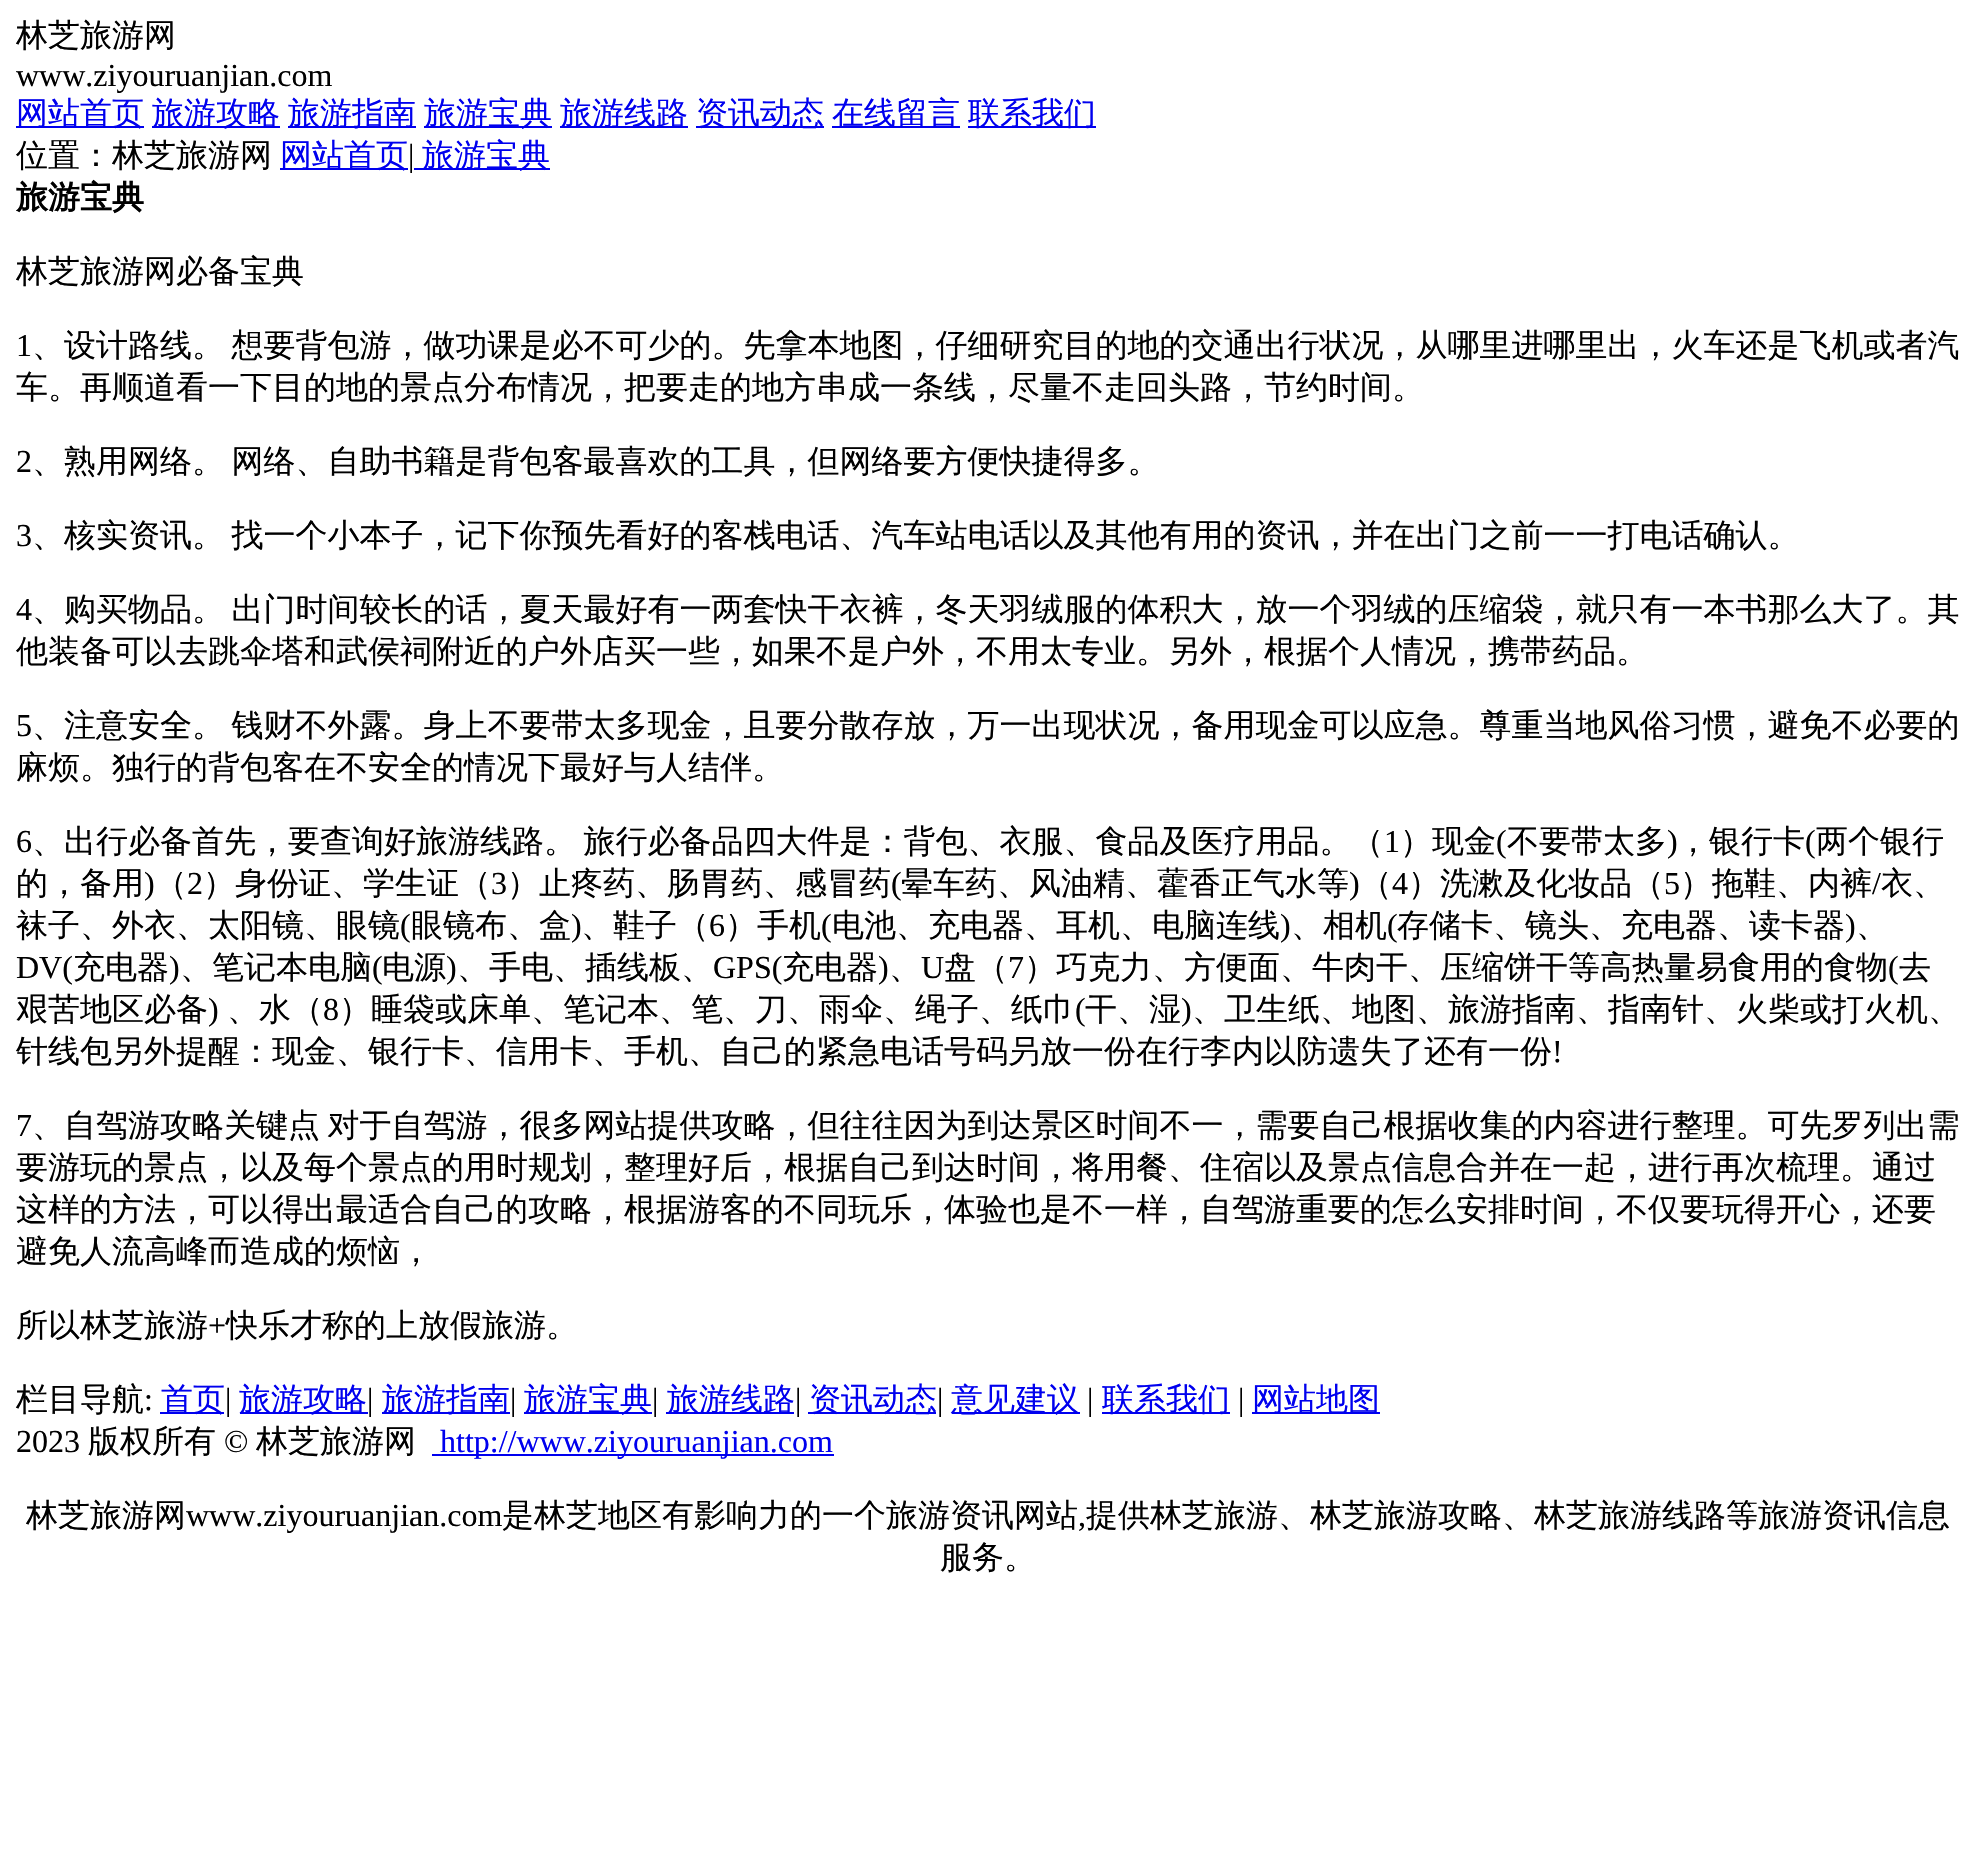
static SkFont makeFont(const char* family, int weight, float size, bool italic = false) {
  SkFontStyle style(weight, SkFontStyle::kNormal_Width,
    italic ? SkFontStyle::kItalic_Slant : SkFontStyle::kUpright_Slant);
  SkFont result(fontMgr->matchFamilyStyle(family, style), size);
  result.setSubpixel(true);
  return result;
}

static void text(SkCanvas* c, const char* s, float x, float y, const SkFont& font, SkColor color) {
  SkPaint ink(SkColor4f::FromColor(color));
  ink.setAntiAlias(true);
  c->drawString(s, x, y, font, ink);
}

static void spacedText(SkCanvas* c, const char* s, float x, float y, const SkFont& font, const SkPaint& ink, float letter, float word) {
  std::vector<SkGlyphID> glyphs(font.countText(s, strlen(s), SkTextEncoding::kUTF8));
  std::vector<float> xs(glyphs.size());
  font.textToGlyphs(s, strlen(s), SkTextEncoding::kUTF8, glyphs);
  font.getXPos(glyphs, xs, x);
  float extra = 0;
  for (size_t i = 0; i < glyphs.size(); i++) {
    xs[i] += extra;
    extra += letter + word * (glyphs[i] == font.unicharToGlyph(' '));
  }
  c->drawTextBlob(SkTextBlob::MakeFromPosHGlyphs(glyphs, xs, y, font), 0, 0, ink);
}

static void box(SkCanvas* c, float l, float t, float r, float b, SkColor color) {
  SkPaint ink(SkColor4f::FromColor(color));
  ink.setAntiAlias(true);
  c->drawRect(SkRect::MakeLTRB(l, t, r, b), ink);
}

void draw(SkCanvas* c) {
  SkPaint paint;
  paint.setAntiAlias(true);
  c->clear(0xffffffff);
  SkFont face1 = makeFont("WenQuanYi Zen Hei", 500, 32);
  text(c, "林芝旅游网", 16, 46, face1, 0xff000000);
  SkFont face2 = makeFont("Liberation Serif", 400, 32);
  text(c, "www.ziyouruanjian.com", 16, 86, face2, 0xff000000);
  box(c, 16, 126, 144, 128, 0xff0000ee);
  text(c, "网站首页", 16, 124, face1, 0xff0000ee);
  box(c, 152, 126, 280, 128, 0xff0000ee);
  text(c, "旅游攻略", 152, 124, face1, 0xff0000ee);
  box(c, 288, 126, 416, 128, 0xff0000ee);
  text(c, "旅游指南", 288, 124, face1, 0xff0000ee);
  box(c, 424, 126, 552, 128, 0xff0000ee);
  text(c, "旅游宝典", 424, 124, face1, 0xff0000ee);
  box(c, 560, 126, 688, 128, 0xff0000ee);
  text(c, "旅游线路", 560, 124, face1, 0xff0000ee);
  box(c, 696, 126, 824, 128, 0xff0000ee);
  text(c, "资讯动态", 696, 124, face1, 0xff0000ee);
  box(c, 832, 126, 960, 128, 0xff0000ee);
  text(c, "在线留言", 832, 124, face1, 0xff0000ee);
  box(c, 968, 126, 1096, 128, 0xff0000ee);
  text(c, "联系我们", 968, 124, face1, 0xff0000ee);
  text(c, "位置：林芝旅游网", 16, 166, face1, 0xff000000);
  box(c, 280, 168, 408, 170, 0xff0000ee);
  text(c, "网站首页", 280, 166, face1, 0xff0000ee);
  text(c, "|", 408, 166, face2, 0xff000000);
  box(c, 414, 168, 550, 170, 0xff0000ee);
  text(c, "旅游宝典", 422, 166, face1, 0xff0000ee);
  SkFont face3 = makeFont("WenQuanYi Zen Hei", 700, 32);
  text(c, "旅游宝典", 16, 208, face3, 0xff000000);
  text(c, "林芝旅游网必备宝典", 16, 282, face1, 0xff000000);
  text(c, "1", 16, 356, face2, 0xff000000);
  paint.setColor(0xff000000);
  spacedText(c, "、设计路线。 想要背包游，做功课是必不可少的。先拿本地图，仔细研究目的地的交通出行状况，从哪里进哪里出，火车还是飞机或者汽", 32, 356, face1, paint, 0, -2);
  text(c, "车。再顺道看一下目的地的景点分布情况，把要走的地方串成一条线，尽量不走回头路，节约时间。", 16, 398, face1, 0xff000000);
  text(c, "2", 16, 472, face2, 0xff000000);
  spacedText(c, "、熟用网络。 网络、自助书籍是背包客最喜欢的工具，但网络要方便快捷得多。", 32, 472, face1, paint, 0, -2);
  text(c, "3", 16, 546, face2, 0xff000000);
  spacedText(c, "、核实资讯。 找一个小本子，记下你预先看好的客栈电话、汽车站电话以及其他有用的资讯，并在出门之前一一打电话确认。", 32, 546, face1, paint, 0, -2);
  text(c, "4", 16, 620, face2, 0xff000000);
  spacedText(c, "、购买物品。 出门时间较长的话，夏天最好有一两套快干衣裤，冬天羽绒服的体积大，放一个羽绒的压缩袋，就只有一本书那么大了。其", 32, 620, face1, paint, 0, -2);
  text(c, "他装备可以去跳伞塔和武侯祠附近的户外店买一些，如果不是户外，不用太专业。另外，根据个人情况，携带药品。", 16, 662, face1, 0xff000000);
  text(c, "5", 16, 736, face2, 0xff000000);
  spacedText(c, "、注意安全。 钱财不外露。身上不要带太多现金，且要分散存放，万一出现状况，备用现金可以应急。尊重当地风俗习惯，避免不必要的", 32, 736, face1, paint, 0, -2);
  text(c, "麻烦。独行的背包客在不安全的情况下最好与人结伴。", 16, 778, face1, 0xff000000);
  text(c, "6", 16, 852, face2, 0xff000000);
  spacedText(c, "、出行必备首先，要查询好旅游线路。 旅行必备品四大件是：背包、衣服、食品及医疗用品。（", 32, 852, face1, paint, 0, -2);
  text(c, "1", 1384, 852, face2, 0xff000000);
  text(c, "）现金", 1400, 852, face1, 0xff000000);
  text(c, "(", 1496, 852, face2, 0xff000000);
  text(c, "不要带太多", 1507, 852, face1, 0xff000000);
  text(c, ")", 1667, 852, face2, 0xff000000);
  text(c, "，银行卡", 1677, 852, face1, 0xff000000);
  text(c, "(", 1805, 852, face2, 0xff000000);
  text(c, "两个银行", 1816, 852, face1, 0xff000000);
  text(c, "的，备用", 16, 894, face1, 0xff000000);
  text(c, ")", 144, 894, face2, 0xff000000);
  text(c, "（", 155, 894, face1, 0xff000000);
  text(c, "2", 187, 894, face2, 0xff000000);
  text(c, "）身份证、学生证（", 203, 894, face1, 0xff000000);
  text(c, "3", 491, 894, face2, 0xff000000);
  text(c, "）止疼药、肠胃药、感冒药", 507, 894, face1, 0xff000000);
  text(c, "(", 891, 894, face2, 0xff000000);
  text(c, "晕车药、风油精、藿香正气水等", 901, 894, face1, 0xff000000);
  text(c, ")", 1349, 894, face2, 0xff000000);
  text(c, "（", 1360, 894, face1, 0xff000000);
  text(c, "4", 1392, 894, face2, 0xff000000);
  text(c, "）洗漱及化妆品（", 1408, 894, face1, 0xff000000);
  text(c, "5", 1664, 894, face2, 0xff000000);
  text(c, "）拖鞋、内裤", 1680, 894, face1, 0xff000000);
  text(c, "/", 1872, 894, face2, 0xff000000);
  text(c, "衣、", 1881, 894, face1, 0xff000000);
  text(c, "袜子、外衣、太阳镜、眼镜", 16, 936, face1, 0xff000000);
  text(c, "(", 400, 936, face2, 0xff000000);
  text(c, "眼镜布、盒", 411, 936, face1, 0xff000000);
  text(c, ")", 571, 936, face2, 0xff000000);
  text(c, "、鞋子（", 581, 936, face1, 0xff000000);
  text(c, "6", 709, 936, face2, 0xff000000);
  text(c, "）手机", 725, 936, face1, 0xff000000);
  text(c, "(", 821, 936, face2, 0xff000000);
  text(c, "电池、充电器、耳机、电脑连线", 832, 936, face1, 0xff000000);
  text(c, ")", 1280, 936, face2, 0xff000000);
  text(c, "、相机", 1291, 936, face1, 0xff000000);
  text(c, "(", 1387, 936, face2, 0xff000000);
  text(c, "存储卡、镜头、充电器、读卡器", 1397, 936, face1, 0xff000000);
  text(c, ")", 1845, 936, face2, 0xff000000);
  text(c, "、", 1856, 936, face1, 0xff000000);
  text(c, "DV(", 16, 978, face2, 0xff000000);
  text(c, "充电器", 73, 978, face1, 0xff000000);
  text(c, ")", 169, 978, face2, 0xff000000);
  text(c, "、笔记本电脑", 180, 978, face1, 0xff000000);
  text(c, "(", 372, 978, face2, 0xff000000);
  text(c, "电源", 382, 978, face1, 0xff000000);
  text(c, ")", 446, 978, face2, 0xff000000);
  text(c, "、手电、插线板、", 457, 978, face1, 0xff000000);
  text(c, "GPS(", 713, 978, face2, 0xff000000);
  text(c, "充电器", 782, 978, face1, 0xff000000);
  text(c, ")", 878, 978, face2, 0xff000000);
  text(c, "、", 889, 978, face1, 0xff000000);
  text(c, "U", 921, 978, face2, 0xff000000);
  text(c, "盘（", 944, 978, face1, 0xff000000);
  text(c, "7", 1008, 978, face2, 0xff000000);
  text(c, "）巧克力、方便面、牛肉干、压缩饼干等高热量易食用的食物", 1024, 978, face1, 0xff000000);
  text(c, "(", 1888, 978, face2, 0xff000000);
  text(c, "去", 1899, 978, face1, 0xff000000);
  text(c, "艰苦地区必备", 16, 1020, face1, 0xff000000);
  text(c, ")", 208, 1020, face2, 0xff000000);
  text(c, "、水（", 227, 1020, face1, 0xff000000);
  text(c, "8", 323, 1020, face2, 0xff000000);
  text(c, "）睡袋或床单、笔记本、笔、刀、雨伞、绳子、纸巾", 339, 1020, face1, 0xff000000);
  text(c, "(", 1075, 1020, face2, 0xff000000);
  text(c, "干、湿", 1085, 1020, face1, 0xff000000);
  text(c, ")", 1181, 1020, face2, 0xff000000);
  text(c, "、卫生纸、地图、旅游指南、指南针、火柴或打火机、", 1192, 1020, face1, 0xff000000);
  text(c, "针线包另外提醒：现金、银行卡、信用卡、手机、自己的紧急电话号码叧放一份在行李内以防遗失了还有一份", 16, 1062, face1, 0xff000000);
  text(c, "!", 1552, 1062, face2, 0xff000000);
  text(c, "7", 16, 1136, face2, 0xff000000);
  spacedText(c, "、自驾游攻略关键点 对于自驾游，很多网站提供攻略，但往往因为到达景区时间不一，需要自己根据收集的内容进行整理。可先罗列出需", 32, 1136, face1, paint, 0, -2);
  text(c, "要游玩的景点，以及每个景点的用时规划，整理好后，根据自己到达时间，将用餐、住宿以及景点信息合并在一起，进行再次梳理。通过", 16, 1178, face1, 0xff000000);
  text(c, "这样的方法，可以得出最适合自己的攻略，根据游客的不同玩乐，体验也是不一样，自驾游重要的怎么安排时间，不仅要玩得开心，还要", 16, 1220, face1, 0xff000000);
  text(c, "避免人流高峰而造成的烦恼，", 16, 1262, face1, 0xff000000);
  text(c, "所以林芝旅游", 16, 1336, face1, 0xff000000);
  text(c, "+", 208, 1336, face2, 0xff000000);
  text(c, "快乐才称的上放假旅游。", 226, 1336, face1, 0xff000000);
  text(c, "栏目导航", 16, 1410, face1, 0xff000000);
  text(c, ":", 144, 1410, face2, 0xff000000);
  box(c, 160, 1412, 224, 1414, 0xff0000ee);
  text(c, "首页", 161, 1410, face1, 0xff0000ee);
  text(c, "|", 225, 1410, face2, 0xff000000);
  box(c, 240, 1412, 368, 1414, 0xff0000ee);
  text(c, "旅游攻略", 239, 1410, face1, 0xff0000ee);
  text(c, "|", 367, 1410, face2, 0xff000000);
  box(c, 382, 1412, 510, 1414, 0xff0000ee);
  text(c, "旅游指南", 382, 1410, face1, 0xff0000ee);
  text(c, "|", 510, 1410, face2, 0xff000000);
  box(c, 524, 1412, 652, 1414, 0xff0000ee);
  text(c, "旅游宝典", 524, 1410, face1, 0xff0000ee);
  text(c, "|", 652, 1410, face2, 0xff000000);
  box(c, 666, 1412, 794, 1414, 0xff0000ee);
  text(c, "旅游线路", 667, 1410, face1, 0xff0000ee);
  text(c, "|", 795, 1410, face2, 0xff000000);
  box(c, 808, 1412, 936, 1414, 0xff0000ee);
  text(c, "资讯动态", 809, 1410, face1, 0xff0000ee);
  text(c, "|", 937, 1410, face2, 0xff000000);
  box(c, 952, 1412, 1080, 1414, 0xff0000ee);
  text(c, "意见建议", 951, 1410, face1, 0xff0000ee);
  text(c, "|", 1087, 1410, face2, 0xff000000);
  box(c, 1102, 1412, 1230, 1414, 0xff0000ee);
  text(c, "联系我们", 1102, 1410, face1, 0xff0000ee);
  text(c, "|", 1238, 1410, face2, 0xff000000);
  box(c, 1252, 1412, 1380, 1414, 0xff0000ee);
  text(c, "网站地图", 1252, 1410, face1, 0xff0000ee);
  text(c, "2023", 16, 1452, face2, 0xff000000);
  text(c, "版权所有", 88, 1452, face1, 0xff000000);
  text(c, "©", 224, 1452, face2, 0xff000000);
  text(c, "林芝旅游网", 256, 1452, face1, 0xff000000);
  box(c, 432, 1454, 834, 1456, 0xff0000ee);
  text(c, "http://www.ziyouruanjian.com", 440, 1452, face2, 0xff0000ee);
  text(c, "林芝旅游网", 26, 1526, face1, 0xff000000);
  text(c, "www.ziyouruanjian.com", 186, 1526, face2, 0xff000000);
  text(c, "是林芝地区有影响力的一个旅游资讯网站", 502, 1526, face1, 0xff000000);
  text(c, ",", 1078, 1526, face2, 0xff000000);
  text(c, "提供林芝旅游、林芝旅游攻略、林芝旅游线路等旅游资讯信息", 1086, 1526, face1, 0xff000000);
  text(c, "服务。", 940, 1568, face1, 0xff000000);
}
